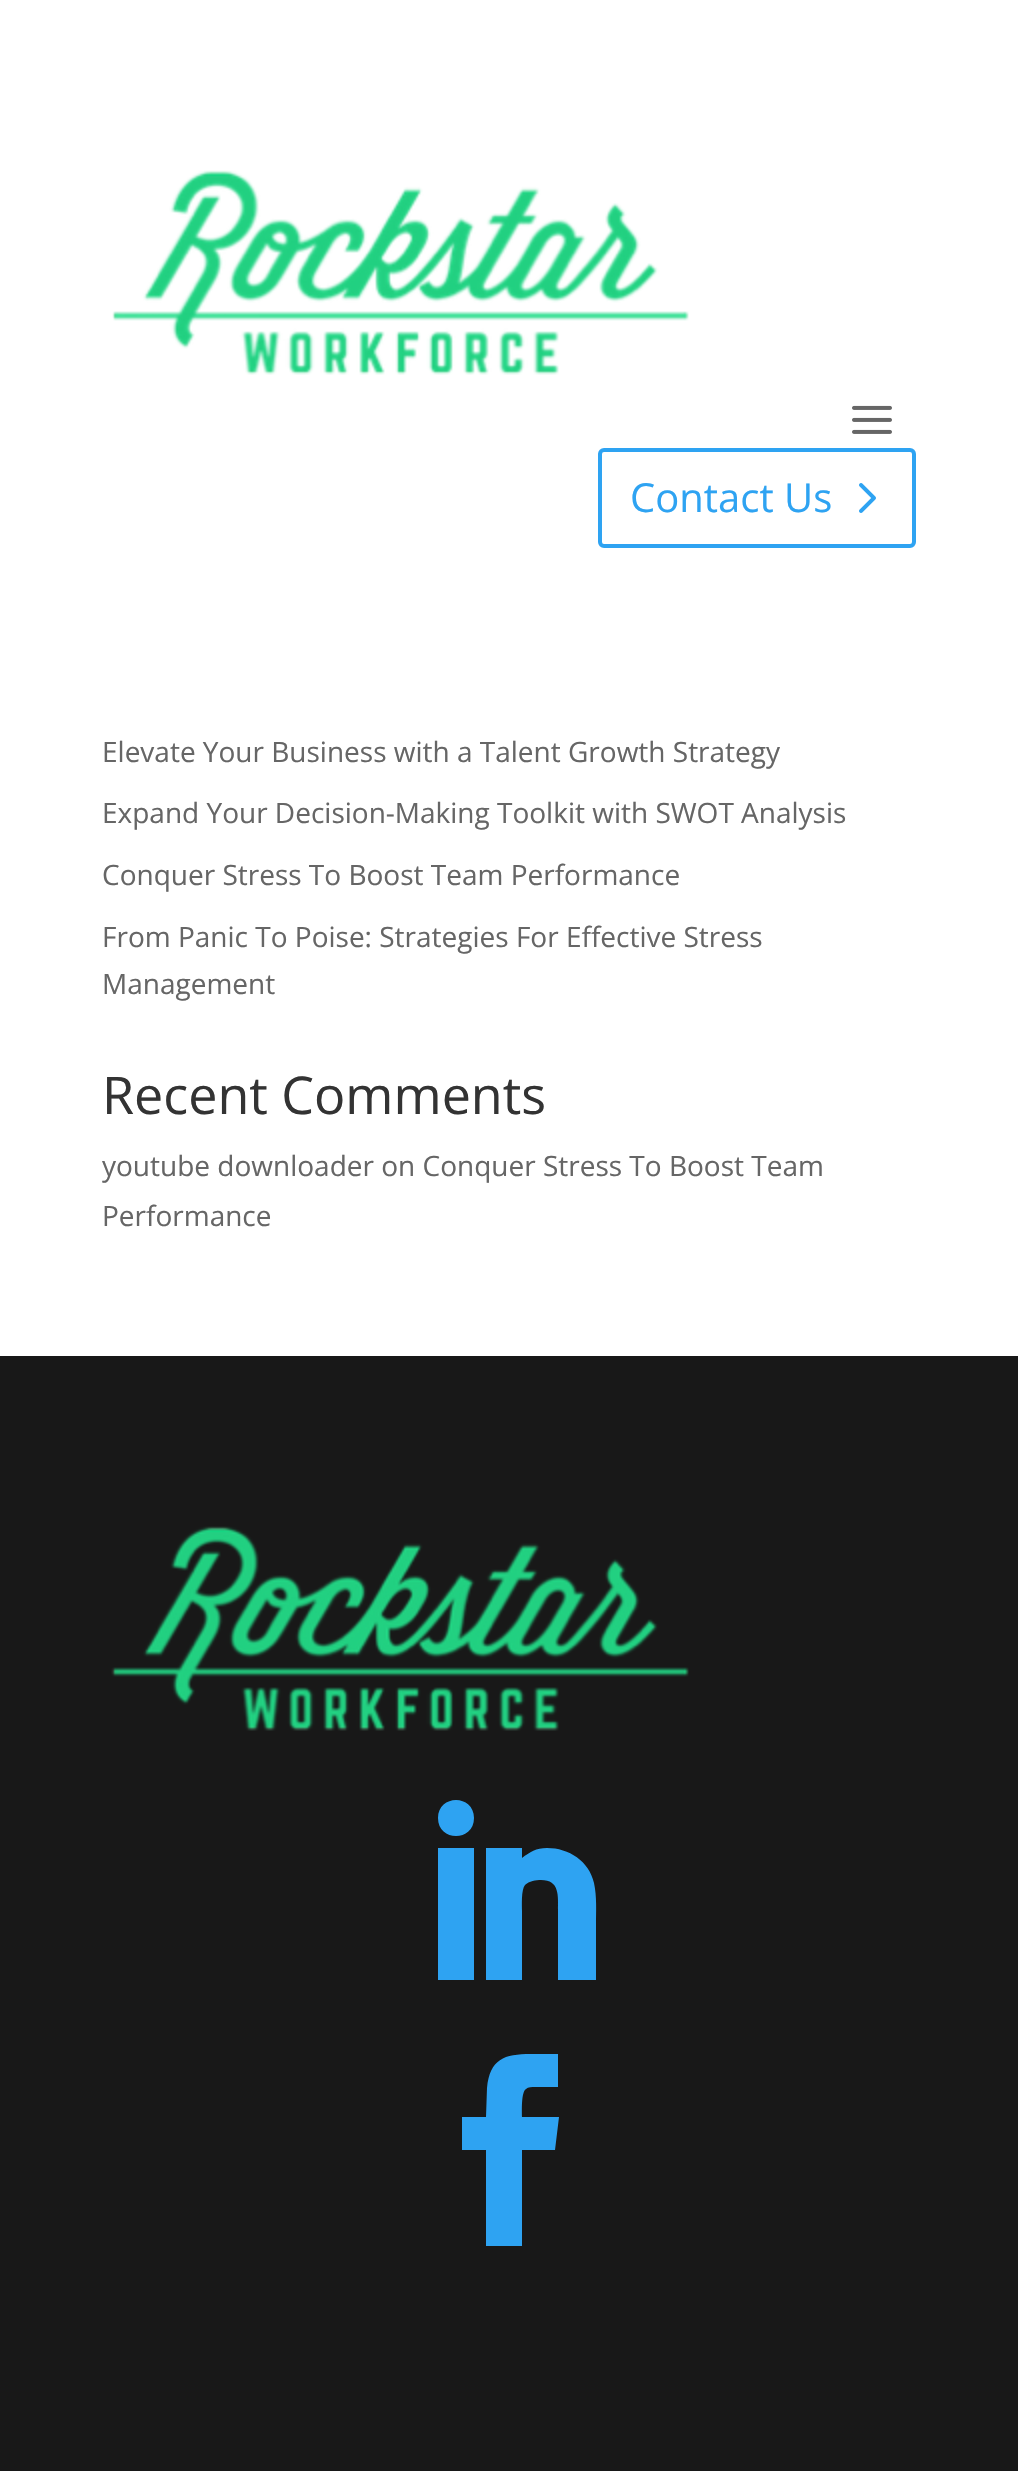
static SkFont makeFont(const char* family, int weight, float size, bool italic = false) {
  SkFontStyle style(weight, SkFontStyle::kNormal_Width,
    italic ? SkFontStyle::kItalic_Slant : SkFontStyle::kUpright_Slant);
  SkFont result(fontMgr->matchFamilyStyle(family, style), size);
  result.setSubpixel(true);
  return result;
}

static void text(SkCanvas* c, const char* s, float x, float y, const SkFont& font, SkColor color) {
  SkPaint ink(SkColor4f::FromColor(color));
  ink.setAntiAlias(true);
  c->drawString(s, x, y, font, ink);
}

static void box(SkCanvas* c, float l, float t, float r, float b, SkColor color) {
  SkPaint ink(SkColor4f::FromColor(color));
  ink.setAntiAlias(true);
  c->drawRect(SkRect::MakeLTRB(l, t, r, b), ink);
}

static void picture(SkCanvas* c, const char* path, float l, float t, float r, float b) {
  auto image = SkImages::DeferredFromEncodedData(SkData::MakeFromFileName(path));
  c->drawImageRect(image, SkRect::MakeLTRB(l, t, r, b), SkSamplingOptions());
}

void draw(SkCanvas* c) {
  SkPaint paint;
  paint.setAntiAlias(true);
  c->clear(0xffffffff);
  picture(c, "img_01.png", 112, 170, 689, 375);
  picture(c, "img_02.png", 852, 405, 892, 434);
  paint.setStyle(SkPaint::kStroke_Style);
  paint.setStrokeWidth(4);
  paint.setColor(0xff2ea3f2);
  c->drawRoundRect(SkRect::MakeLTRB(600, 450, 914, 546), 4, 4, paint);
  SkFont face1 = makeFont("Open Sans", 400, 40);
  text(c, "Contact Us", 630, 512, face1, 0xff2ea3f2);
  picture(c, "img_03.png", 859, 483, 876, 513);
  SkFont face2 = makeFont("Open Sans", 400, 28);
  text(c, "Elevate Your Business with a Talent Growth Strategy", 102, 762, face2, 0xff666666);
  text(c, "Expand Your Decision-Making Toolkit with SWOT Analysis", 102, 823, face2, 0xff666666);
  text(c, "Conquer Stress To Boost Team Performance", 102, 885, face2, 0xff666666);
  text(c, "From Panic To Poise: Strategies For Effective Stress", 102, 947, face2, 0xff666666);
  text(c, "Management", 102, 994, face2, 0xff666666);
  SkFont face3 = makeFont("Open Sans", 400, 52);
  text(c, "Recent Comments", 102, 1114, face3, 0xff333333);
  text(c, "youtube downloader on Conquer Stress To Boost Team", 102, 1176, face2, 0xff666666);
  text(c, "Performance", 102, 1226, face2, 0xff666666);
  box(c, 0, 1356, 1018, 2471, 0xff181818);
  picture(c, "img_04.png", 111, 1526, 689, 1731);
  paint.setStyle(SkPaint::kFill_Style);
  c->drawPath(SkPathBuilder().moveTo(438, 1848).lineTo(474, 1848).lineTo(474, 1980).lineTo(438, 1980).close().moveTo(547, 1848).cubicTo(536, 1848, 530, 1852, 522, 1858).lineTo(522, 1848).lineTo(486, 1848).lineTo(486, 1980).lineTo(522, 1980).lineTo(522, 1911).cubicTo(522, 1906, 521, 1890, 525, 1885).cubicTo(529, 1881, 536, 1880, 541, 1880).cubicTo(560, 1880, 558, 1896, 558, 1911).lineTo(558, 1980).lineTo(596, 1980).lineTo(596, 1925).cubicTo(596, 1911, 597, 1897, 594, 1883).cubicTo(589, 1861, 569, 1848, 547, 1848).close().moveTo(438, 1818).cubicTo(438, 1842, 474, 1842, 474, 1818).cubicTo(474, 1794, 438, 1794, 438, 1818).close().detach(), paint);
  c->drawPath(SkPathBuilder().moveTo(486, 2246).lineTo(522, 2246).lineTo(522, 2150).lineTo(555, 2150).lineTo(559, 2117).lineTo(522, 2117).cubicTo(522, 2112, 521, 2092, 526, 2089).cubicTo(528, 2087, 532, 2087, 535, 2087).lineTo(558, 2087).lineTo(558, 2054).lineTo(531, 2054).cubicTo(504, 2054, 490, 2059, 487, 2088).lineTo(486, 2117).lineTo(462, 2117).lineTo(462, 2150).lineTo(486, 2150).close().detach(), paint);
}
